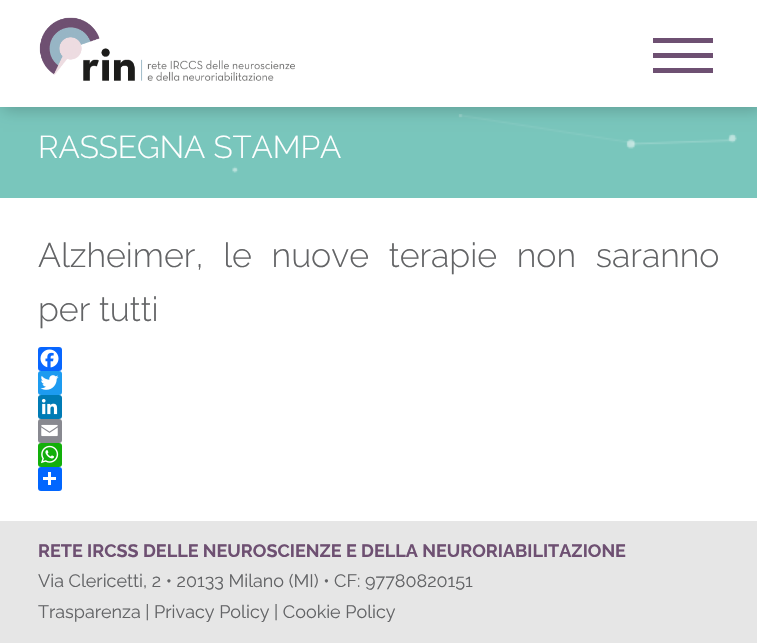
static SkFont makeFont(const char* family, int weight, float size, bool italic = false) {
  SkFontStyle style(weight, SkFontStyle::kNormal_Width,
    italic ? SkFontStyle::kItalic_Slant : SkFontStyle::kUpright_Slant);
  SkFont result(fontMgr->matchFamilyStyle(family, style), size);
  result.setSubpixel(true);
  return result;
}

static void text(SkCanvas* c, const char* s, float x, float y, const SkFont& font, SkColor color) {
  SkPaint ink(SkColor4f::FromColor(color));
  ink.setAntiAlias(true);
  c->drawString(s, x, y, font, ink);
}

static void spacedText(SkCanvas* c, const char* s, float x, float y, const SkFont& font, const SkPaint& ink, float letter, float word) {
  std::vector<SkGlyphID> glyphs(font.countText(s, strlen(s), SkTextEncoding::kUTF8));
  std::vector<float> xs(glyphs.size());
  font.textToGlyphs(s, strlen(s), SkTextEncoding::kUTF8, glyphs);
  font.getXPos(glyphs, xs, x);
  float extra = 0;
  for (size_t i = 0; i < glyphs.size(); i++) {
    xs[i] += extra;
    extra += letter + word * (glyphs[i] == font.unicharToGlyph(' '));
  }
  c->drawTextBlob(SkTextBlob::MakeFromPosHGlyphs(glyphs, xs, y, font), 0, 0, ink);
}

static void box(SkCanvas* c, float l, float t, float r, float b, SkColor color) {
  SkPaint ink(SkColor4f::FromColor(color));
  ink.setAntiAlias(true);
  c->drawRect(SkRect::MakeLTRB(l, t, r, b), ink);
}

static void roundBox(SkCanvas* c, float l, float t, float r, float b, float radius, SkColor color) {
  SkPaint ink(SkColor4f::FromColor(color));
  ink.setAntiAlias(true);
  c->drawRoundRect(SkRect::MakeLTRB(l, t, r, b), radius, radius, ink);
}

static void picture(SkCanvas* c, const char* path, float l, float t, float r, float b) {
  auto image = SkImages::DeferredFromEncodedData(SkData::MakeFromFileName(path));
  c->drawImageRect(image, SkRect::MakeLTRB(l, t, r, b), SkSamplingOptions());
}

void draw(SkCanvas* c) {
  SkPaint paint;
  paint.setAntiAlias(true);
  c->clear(0xffffffff);
  box(c, 0, 107, 757, 198, 0xff79c6bc);
  SkFont face1 = makeFont("Raleway", 300, 31.5f);
  text(c, "RASSEGNA STAMPA", 38, 158, face1, 0xffffffff);
  picture(c, "img_02.png", 232, 114, 737, 173);
  paint.setColor(0x33000000);
  paint.setMaskFilter(SkMaskFilter::MakeBlur(kNormal_SkBlurStyle, 7.5f));
  c->drawRect(SkRect::MakeLTRB(3, 3, 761, 110), paint);
  paint.setMaskFilter(nullptr);
  box(c, 0, 0, 757, 107, 0xffffffff);
  picture(c, "img_01.png", 39, 17, 295, 81);
  box(c, 653, 53, 713, 58, 0xff6e5072);
  box(c, 653, 38, 713, 43, 0xff6e5072);
  box(c, 653, 68, 713, 73, 0xff6e5072);
  SkFont face2 = makeFont("Raleway", 300, 34);
  paint.setColor(0xff636466);
  spacedText(c, "Alzheimer, le nuove terapie non saranno", 38, 267, face2, paint, 0, 11);
  text(c, "per tutti", 38, 321, face2, 0xff636466);
  roundBox(c, 38, 347, 62, 371, 3, 0xff0866ff);
  picture(c, "img_03.png", 40, 349, 59, 368);
  roundBox(c, 38, 371, 62, 395, 3, 0xff1d9bf0);
  picture(c, "img_04.png", 40, 375, 59, 390);
  roundBox(c, 38, 395, 62, 419, 3, 0xff007bb5);
  picture(c, "img_05.png", 41, 398, 58, 415);
  roundBox(c, 38, 419, 62, 443, 3, 0xff888990);
  picture(c, "img_06.png", 41, 424, 58, 437);
  roundBox(c, 38, 443, 62, 467, 3, 0xff12af0a);
  picture(c, "img_07.png", 41, 445, 59, 464);
  roundBox(c, 38, 467, 62, 491, 3, 0xff0166ff);
  box(c, 48, 472, 51, 485, 0xffffffff);
  box(c, 43, 477, 56, 480, 0xffffffff);
  box(c, 0, 521, 757, 643, 0xffe6e6e6);
  SkFont face3 = makeFont("Raleway", 700, 18);
  text(c, "RETE IRCSS DELLE NEUROSCIENZE E DELLA NEURORIABILITAZIONE", 38, 557, face3, 0xff6e5072);
  SkFont face4 = makeFont("Raleway", 400, 18);
  text(c, "Via Clericetti, 2 • 20133 Milano (MI) • CF: 97780820151", 38, 587, face4, 0xff636466);
  text(c, "Trasparenza | Privacy Policy | Cookie Policy", 38, 618, face4, 0xff636466);
}
